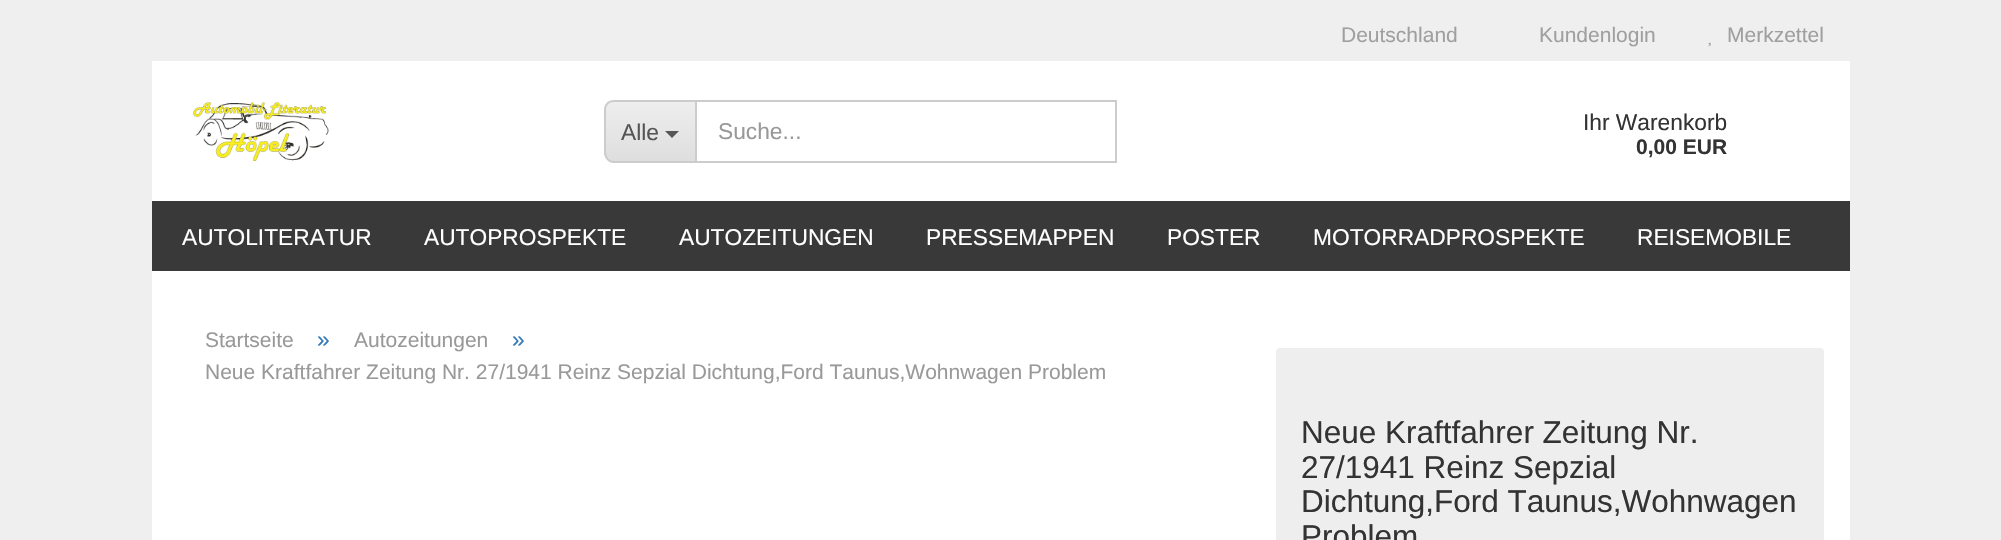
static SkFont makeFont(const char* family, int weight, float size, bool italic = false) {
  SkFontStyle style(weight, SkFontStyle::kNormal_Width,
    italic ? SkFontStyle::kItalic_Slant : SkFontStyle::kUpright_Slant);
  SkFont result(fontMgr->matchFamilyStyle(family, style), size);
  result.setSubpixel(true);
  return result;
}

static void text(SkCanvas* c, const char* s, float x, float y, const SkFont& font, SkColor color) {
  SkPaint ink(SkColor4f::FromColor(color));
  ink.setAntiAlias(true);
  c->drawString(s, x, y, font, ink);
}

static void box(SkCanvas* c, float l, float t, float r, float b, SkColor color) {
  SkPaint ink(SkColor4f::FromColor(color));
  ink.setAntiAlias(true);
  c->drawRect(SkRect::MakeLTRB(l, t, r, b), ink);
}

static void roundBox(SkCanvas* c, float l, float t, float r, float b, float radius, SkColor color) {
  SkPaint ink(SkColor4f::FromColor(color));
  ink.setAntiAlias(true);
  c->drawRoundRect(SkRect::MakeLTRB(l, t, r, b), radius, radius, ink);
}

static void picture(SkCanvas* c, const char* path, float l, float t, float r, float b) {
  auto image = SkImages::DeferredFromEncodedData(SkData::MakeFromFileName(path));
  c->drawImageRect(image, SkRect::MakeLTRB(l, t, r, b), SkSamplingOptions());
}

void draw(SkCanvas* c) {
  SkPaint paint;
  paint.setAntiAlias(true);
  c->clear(0xffefefef);
  box(c, 152, 61, 1850, 540, 0xffffffff);
  SkFont face1 = makeFont("Liberation Sans", 400, 21);
  text(c, "Deutschland", 1341, 42, face1, 0xff9f9f9f);
  text(c, "Kundenlogin", 1539, 42, face1, 0xff9f9f9f);
  text(c, "Merkzettel", 1727, 42, face1, 0xff9f9f9f);
  picture(c, "img_01.png", 1708, 42, 1711, 47);
  picture(c, "img_02.png", 193, 102, 329, 161);
  c->save();
  c->clipPath(SkPathBuilder().moveTo(615, 100).lineTo(695, 100).lineTo(695, 163).lineTo(615, 163).cubicTo(609, 163, 604, 158, 604, 152).lineTo(604, 111).cubicTo(604, 105, 609, 100, 615, 100).close().detach(), true);
  {
    const SkColor colors[] = {0xffeeeeee, 0xffdedede};
    const float stops[] = {0, 1};
    const SkPoint ends[] = {{650, 102}, {650, 161}};
    paint.setShader(SkGradientShader::MakeLinear(ends, colors, stops, 2, SkTileMode::kClamp));
    paint.setAlpha(255);
  }
  c->drawRect(SkRect::MakeLTRB(604, 102, 695, 161), paint);
  c->restore();
  paint.setShader(nullptr);
  paint.setColor(0xffcccccc);
  c->drawPath(SkPathBuilder(SkPathFillType::kEvenOdd).moveTo(614, 100).lineTo(695, 100).lineTo(695, 163).lineTo(614, 163).cubicTo(608, 163, 604, 158, 604, 152).lineTo(604, 110).cubicTo(604, 104, 608, 100, 614, 100).close().moveTo(614, 102).lineTo(695, 102).lineTo(695, 161).lineTo(614, 161).cubicTo(609, 161, 606, 157, 606, 152).lineTo(606, 110).cubicTo(606, 105, 609, 102, 614, 102).close().detach(), paint);
  SkFont face2 = makeFont("Liberation Sans", 400, 22.75f);
  text(c, "Alle", 621, 140, face2, 0xff555555);
  paint.setColor(0xff555555);
  c->drawPath(SkPathBuilder().moveTo(665, 131).lineTo(679, 131).lineTo(672, 138).close().detach(), paint);
  paint.setStyle(SkPaint::kStroke_Style);
  paint.setStrokeWidth(2);
  paint.setColor(0xffcccccc);
  c->drawRect(SkRect::MakeLTRB(696, 101, 1116, 162), paint);
  text(c, "Suche...", 718, 139, face2, 0xff999999);
  text(c, "Ihr Warenkorb", 1583, 130, face2, 0xff333333);
  SkFont face3 = makeFont("Liberation Sans", 700, 21);
  text(c, "0,00 EUR", 1636, 154, face3, 0xff333333);
  box(c, 152, 201, 1850, 271, 0xff393939);
  text(c, "AUTOLITERATUR", 182, 245, face2, 0xffffffff);
  text(c, "AUTOPROSPEKTE", 424, 245, face2, 0xffffffff);
  text(c, "AUTOZEITUNGEN", 679, 245, face2, 0xffffffff);
  text(c, "PRESSEMAPPEN", 926, 245, face2, 0xffffffff);
  text(c, "POSTER", 1167, 245, face2, 0xffffffff);
  text(c, "MOTORRADPROSPEKTE", 1313, 245, face2, 0xffffffff);
  text(c, "REISEMOBILE", 1637, 245, face2, 0xffffffff);
  text(c, "Startseite", 205, 347, face1, 0xff999999);
  text(c, "»", 317, 347, face2, 0xff337ab7);
  text(c, "Autozeitungen", 354, 347, face1, 0xff999999);
  text(c, "»", 512, 347, face2, 0xff337ab7);
  text(c, "Neue Kraftfahrer Zeitung Nr. 27/1941 Reinz Sepzial Dichtung,Ford Taunus,Wohnwagen Problem", 205, 379, face1, 0xff999999);
  roundBox(c, 1276, 348, 1824, 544, 4, 0xffeeeeee);
  SkFont face4 = makeFont("Liberation Sans", 400, 31.5f);
  text(c, "Neue Kraftfahrer Zeitung Nr.", 1301, 443, face4, 0xff333333);
  text(c, "27/1941 Reinz Sepzial", 1301, 478, face4, 0xff333333);
  text(c, "Dichtung,Ford Taunus,Wohnwagen", 1301, 512, face4, 0xff333333);
  text(c, "Problem", 1301, 547, face4, 0xff333333);
}
